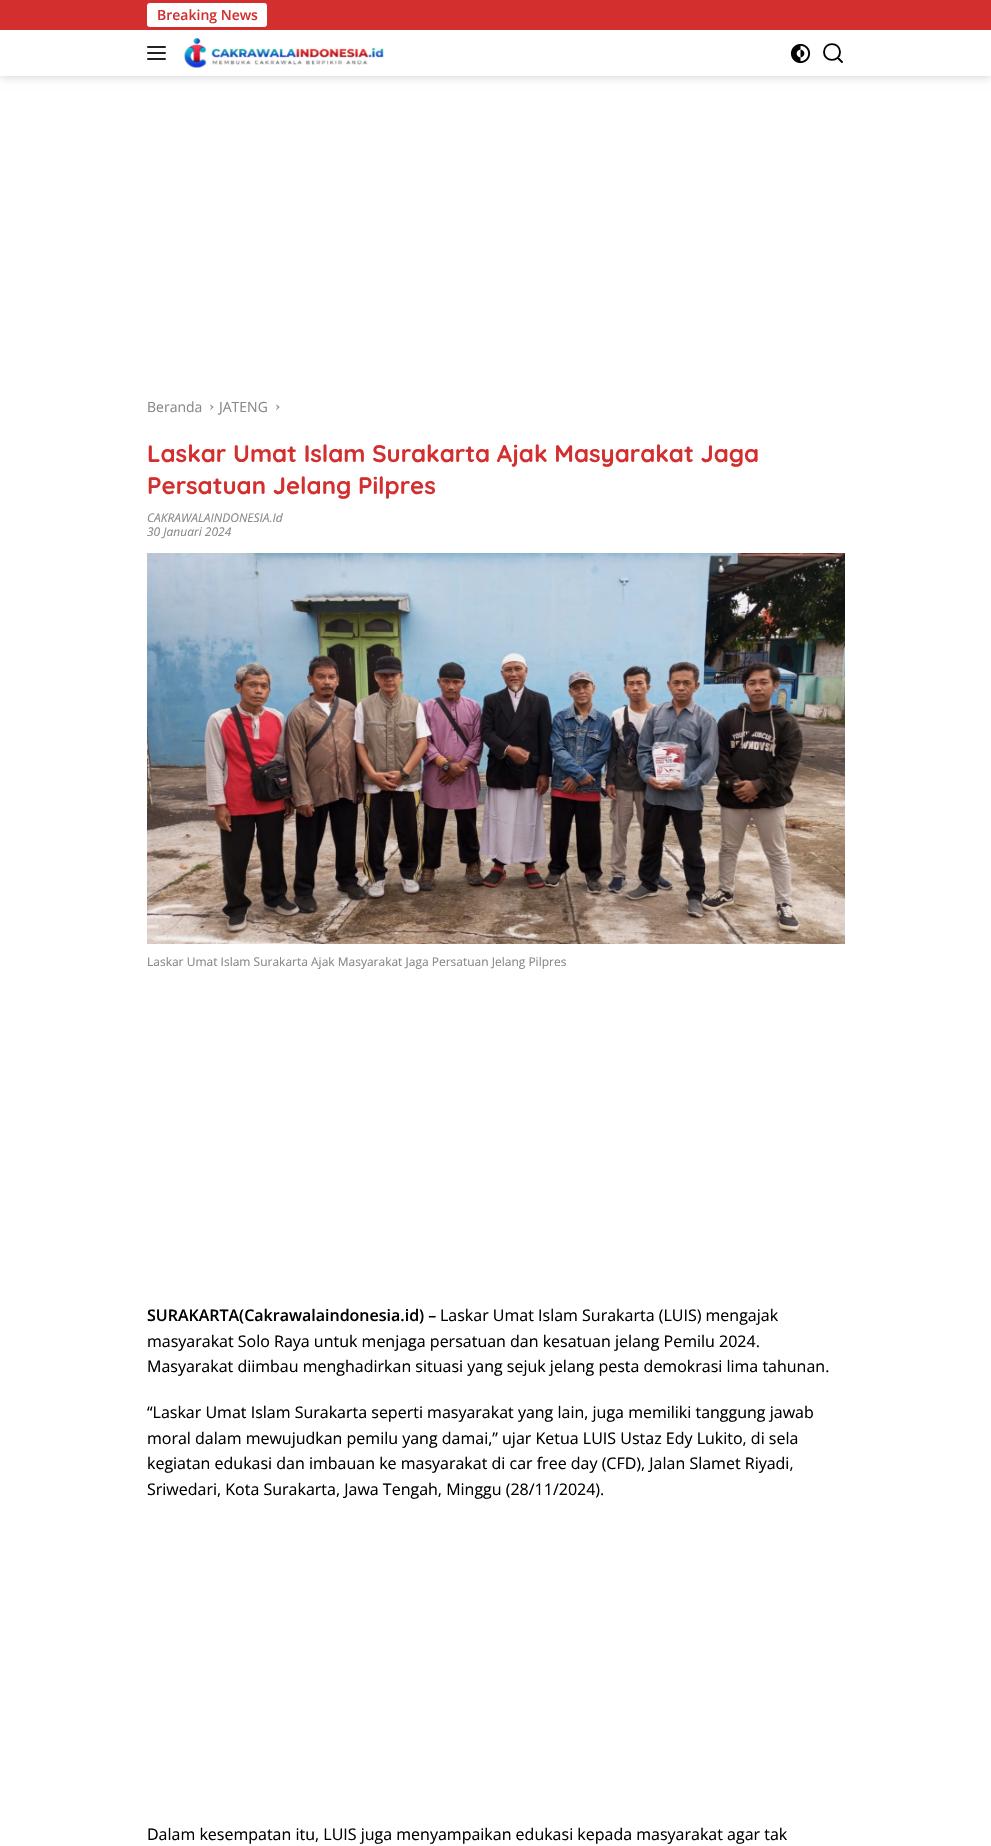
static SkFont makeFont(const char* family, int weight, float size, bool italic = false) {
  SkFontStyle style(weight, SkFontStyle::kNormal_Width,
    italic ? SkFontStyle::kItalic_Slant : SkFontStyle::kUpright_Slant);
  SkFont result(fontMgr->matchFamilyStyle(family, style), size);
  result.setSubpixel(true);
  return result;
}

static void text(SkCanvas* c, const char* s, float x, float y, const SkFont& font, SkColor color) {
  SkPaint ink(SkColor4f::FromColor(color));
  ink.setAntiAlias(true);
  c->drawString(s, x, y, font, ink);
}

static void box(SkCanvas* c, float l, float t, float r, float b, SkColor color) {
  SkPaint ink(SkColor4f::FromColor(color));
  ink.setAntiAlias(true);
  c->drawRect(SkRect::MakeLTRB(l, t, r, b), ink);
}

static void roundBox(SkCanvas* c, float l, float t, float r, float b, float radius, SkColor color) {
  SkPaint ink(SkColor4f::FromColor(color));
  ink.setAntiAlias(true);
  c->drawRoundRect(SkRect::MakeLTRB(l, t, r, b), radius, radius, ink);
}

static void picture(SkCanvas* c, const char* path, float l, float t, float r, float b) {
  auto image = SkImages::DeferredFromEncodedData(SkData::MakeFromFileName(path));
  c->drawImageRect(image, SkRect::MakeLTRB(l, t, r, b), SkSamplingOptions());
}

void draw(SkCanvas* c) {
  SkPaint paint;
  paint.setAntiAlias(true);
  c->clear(0xffffffff);
  paint.setColor(0x33000000);
  paint.setMaskFilter(SkMaskFilter::MakeBlur(kNormal_SkBlurStyle, 5));
  c->drawRect(SkRect::MakeLTRB(0, 0, 991, 76), paint);
  paint.setMaskFilter(nullptr);
  box(c, 0, 30, 991, 76, 0xffffffff);
  box(c, 0, 0, 991, 30, 0xffd32f2f);
  roundBox(c, 147, 3, 267, 27, 3, 0xffffffff);
  SkFont face1 = makeFont("Open Sans", 600, 14);
  text(c, "Breaking News", 157, 20, face1, 0xffd32f2f);
  roundBox(c, 147, 46, 166, 48, 1, 0xff222222);
  roundBox(c, 147, 52, 166, 54, 1, 0xff222222);
  roundBox(c, 147, 58, 166, 60, 1, 0xff222222);
  picture(c, "img_01.png", 184, 38, 384, 68);
  picture(c, "img_02.png", 790, 43, 811, 64);
  paint.setStyle(SkPaint::kStroke_Style);
  paint.setStrokeWidth(1.9f);
  paint.setStrokeCap(SkPaint::kRound_Cap);
  paint.setColor(0xff000000);
  c->drawPath(SkPathBuilder().moveTo(842, 62).lineTo(838, 58).moveTo(840, 52).cubicTo(840, 62.5f, 824, 62.5f, 824, 52).cubicTo(824, 41.5f, 840, 41.5f, 840, 52).close().detach(), paint);
  SkFont face2 = makeFont("Open Sans", 400, 14);
  text(c, "Beranda", 147, 412, face2, 0xff888888);
  paint.setStyle(SkPaint::kFill_Style);
  paint.setColor(0xff888888);
  c->drawPath(SkPathBuilder().moveTo(210, 405).lineTo(210.5f, 404.5f).lineTo(213.5f, 407).lineTo(212.5f, 408).close().detach(), paint);
  c->drawPath(SkPathBuilder().moveTo(210, 409.5f).lineTo(212.5f, 406.5f).lineTo(213.5f, 407).lineTo(210.5f, 410).close().detach(), paint);
  text(c, "JATENG", 219, 412, face2, 0xff888888);
  c->drawPath(SkPathBuilder().moveTo(276, 405).lineTo(276.5f, 404.5f).lineTo(279.5f, 407).lineTo(278.5f, 408).close().detach(), paint);
  c->drawPath(SkPathBuilder().moveTo(276, 409.5f).lineTo(278.5f, 406.5f).lineTo(279.5f, 407).lineTo(276.5f, 410).close().detach(), paint);
  SkFont face3 = makeFont("Quicksand", 700, 24);
  text(c, "Laskar Umat Islam Surakarta Ajak Masyarakat Jaga", 147, 462, face3, 0xffd32f2f);
  text(c, "Persatuan Jelang Pilpres", 147, 494, face3, 0xffd32f2f);
  SkFont face4 = makeFont("Open Sans", 400, 12, true);
  text(c, "CAKRAWALAINDONESIA.Id", 147, 522, face4, 0xff888888);
  text(c, "30 Januari 2024", 147, 536, face4, 0xff888888);
  picture(c, "img_03.png", 147, 553, 845, 944);
  SkFont face5 = makeFont("Open Sans", 400, 12);
  text(c, "Laskar Umat Islam Surakarta Ajak Masyarakat Jaga Persatuan Jelang Pilpres", 147, 966, face5, 0xff888888);
  SkFont face6 = makeFont("Open Sans", 600, 16);
  text(c, "SURAKARTA(Cakrawalaindonesia.id) –", 147, 1321, face6, 0xff000000);
  SkFont face7 = makeFont("Open Sans", 400, 16);
  text(c, "Laskar Umat Islam Surakarta (LUIS) mengajak", 440, 1321, face7, 0xff000000);
  text(c, "masyarakat Solo Raya untuk menjaga persatuan dan kesatuan jelang Pemilu 2024.", 147, 1347, face7, 0xff000000);
  text(c, "Masyarakat diimbau menghadirkan situasi yang sejuk jelang pesta demokrasi lima tahunan.", 147, 1372, face7, 0xff000000);
  text(c, "“Laskar Umat Islam Surakarta seperti masyarakat yang lain, juga memiliki tanggung jawab", 147, 1418, face7, 0xff000000);
  text(c, "moral dalam mewujudkan pemilu yang damai,” ujar Ketua LUIS Ustaz Edy Lukito, di sela", 147, 1444, face7, 0xff000000);
  text(c, "kegiatan edukasi dan imbauan ke masyarakat di car free day (CFD), Jalan Slamet Riyadi,", 147, 1469, face7, 0xff000000);
  text(c, "Sriwedari, Kota Surakarta, Jawa Tengah, Minggu (28/11/2024).", 147, 1495, face7, 0xff000000);
  text(c, "Dalam kesempatan itu, LUIS juga menyampaikan edukasi kepada masyarakat agar tak", 147, 1840, face7, 0xff000000);
}
